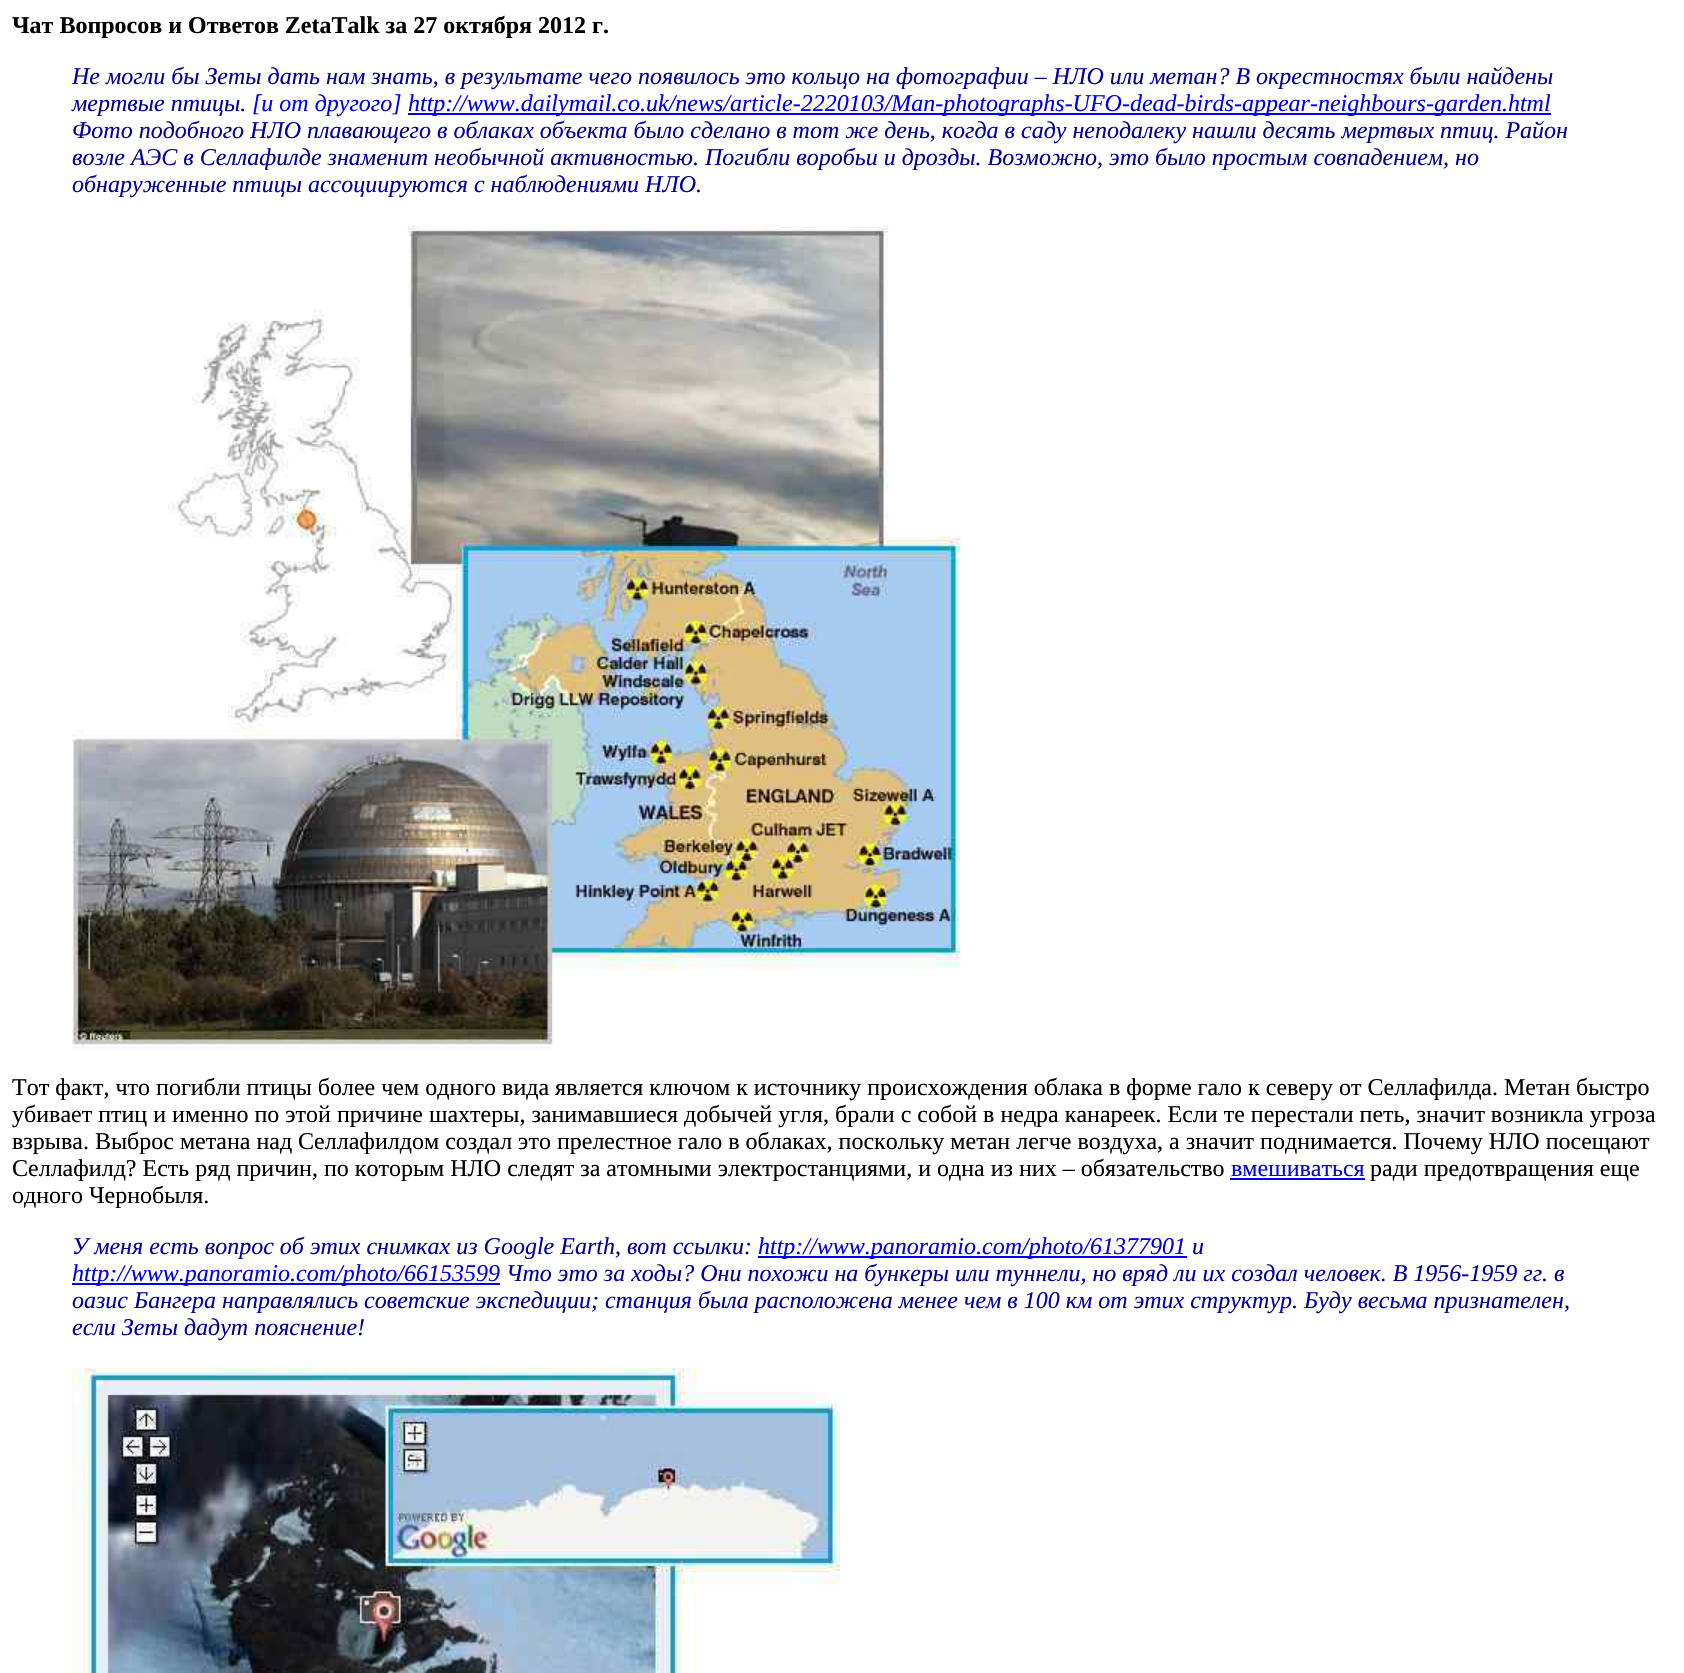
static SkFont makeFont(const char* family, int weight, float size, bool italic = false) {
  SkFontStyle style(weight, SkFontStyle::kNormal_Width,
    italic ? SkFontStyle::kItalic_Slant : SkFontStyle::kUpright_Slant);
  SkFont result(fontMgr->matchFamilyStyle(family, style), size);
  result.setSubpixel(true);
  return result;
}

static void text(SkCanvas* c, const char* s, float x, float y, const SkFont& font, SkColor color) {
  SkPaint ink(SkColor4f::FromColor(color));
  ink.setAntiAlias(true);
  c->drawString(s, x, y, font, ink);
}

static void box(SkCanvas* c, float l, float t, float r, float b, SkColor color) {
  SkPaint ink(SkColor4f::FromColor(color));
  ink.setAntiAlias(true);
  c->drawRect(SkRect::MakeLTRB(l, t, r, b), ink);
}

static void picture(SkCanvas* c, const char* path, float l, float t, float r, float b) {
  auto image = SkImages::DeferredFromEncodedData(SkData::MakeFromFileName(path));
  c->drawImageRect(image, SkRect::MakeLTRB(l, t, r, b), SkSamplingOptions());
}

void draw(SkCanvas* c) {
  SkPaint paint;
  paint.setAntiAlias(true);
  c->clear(0xffffffff);
  SkFont face1 = makeFont("Liberation Serif", 700, 24);
  text(c, "Чат Вопросов и Ответов ZetaTalk за 27 октября 2012 г.", 12, 33, face1, 0xff000000);
  SkFont face2 = makeFont("Liberation Serif", 400, 24, true);
  text(c, "Не могли бы Зеты дать нам знать, в результате чего появилось это кольцо на фотографии – НЛО или метан? В окрестностях были найдены", 72, 84, face2, 0xff0000a0);
  text(c, "мертвые птицы.", 72, 111, face2, 0xff0000a0);
  text(c, "[и от другого]", 252, 111, face2, 0xff0000ff);
  box(c, 408, 113, 1551, 115, 0xff0000ee);
  text(c, "http://www.dailymail.co.uk/news/article-2220103/Man-photographs-UFO-dead-birds-appear-neighbours-garden.html", 408, 111, face2, 0xff0000ee);
  text(c, "Фото подобного НЛО плавающего в облаках объекта было сделано в тот же день, когда в саду неподалеку нашли десять мертвых птиц. Район", 72, 138, face2, 0xff0000a0);
  text(c, "возле АЭС в Селлафилде знаменит необычной активностью. Погибли воробьи и дрозды. Возможно, это было простым совпадением, но", 72, 165, face2, 0xff0000a0);
  text(c, "обнаруженные птицы ассоциируются с наблюдениями НЛО.", 72, 192, face2, 0xff0000a0);
  picture(c, "img_01.png", 72, 225, 962, 1049);
  SkFont face3 = makeFont("Liberation Serif", 400, 24);
  text(c, "Тот факт, что погибли птицы более чем одного вида является ключом к источнику происхождения облака в форме гало к северу от Селлафилда. Метан быстро", 12, 1095, face3, 0xff000000);
  text(c, "убивает птиц и именно по этой причине шахтеры, занимавшиеся добычей угля, брали с собой в недра канареек. Если те перестали петь, значит возникла угроза", 12, 1122, face3, 0xff000000);
  text(c, "взрыва. Выброс метана над Селлафилдом создал это прелестное гало в облаках, поскольку метан легче воздуха, а значит поднимается. Почему НЛО посещают", 12, 1149, face3, 0xff000000);
  text(c, "Селлафилд? Есть ряд причин, по которым НЛО следят за атомными электростанциями, и одна из них – обязательство", 12, 1176, face3, 0xff000000);
  text(c, "вмешиваться", 1231, 1176, face3, 0xff0000ee);
  box(c, 1230, 1178, 1365, 1180, 0xff0000ee);
  text(c, "ради предотвращения еще", 1370, 1176, face3, 0xff000000);
  text(c, "одного Чернобыля.", 12, 1203, face3, 0xff000000);
  text(c, "У меня есть вопрос об этих снимках из Google Earth, вот ссылки:", 72, 1254, face2, 0xff0000a0);
  box(c, 758, 1256, 1187, 1258, 0xff0000ee);
  text(c, "http://www.panoramio.com/photo/61377901", 758, 1254, face2, 0xff0000ee);
  text(c, "и", 1192, 1254, face2, 0xff0000a0);
  box(c, 72, 1283, 500, 1285, 0xff0000ee);
  text(c, "http://www.panoramio.com/photo/66153599", 72, 1281, face2, 0xff0000ee);
  text(c, "Что это за ходы? Они похожи на бункеры или туннели, но вряд ли их создал человек. В 1956-1959 гг. в", 506, 1281, face2, 0xff0000a0);
  text(c, "оазис Бангера направлялись советские экспедиции; станция была расположена менее чем в 100 км от этих структур. Буду весьма признателен,", 72, 1308, face2, 0xff0000a0);
  text(c, "если Зеты дадут пояснение!", 72, 1335, face2, 0xff0000a0);
  picture(c, "img_02.png", 72, 1368, 840, 1673);
}
